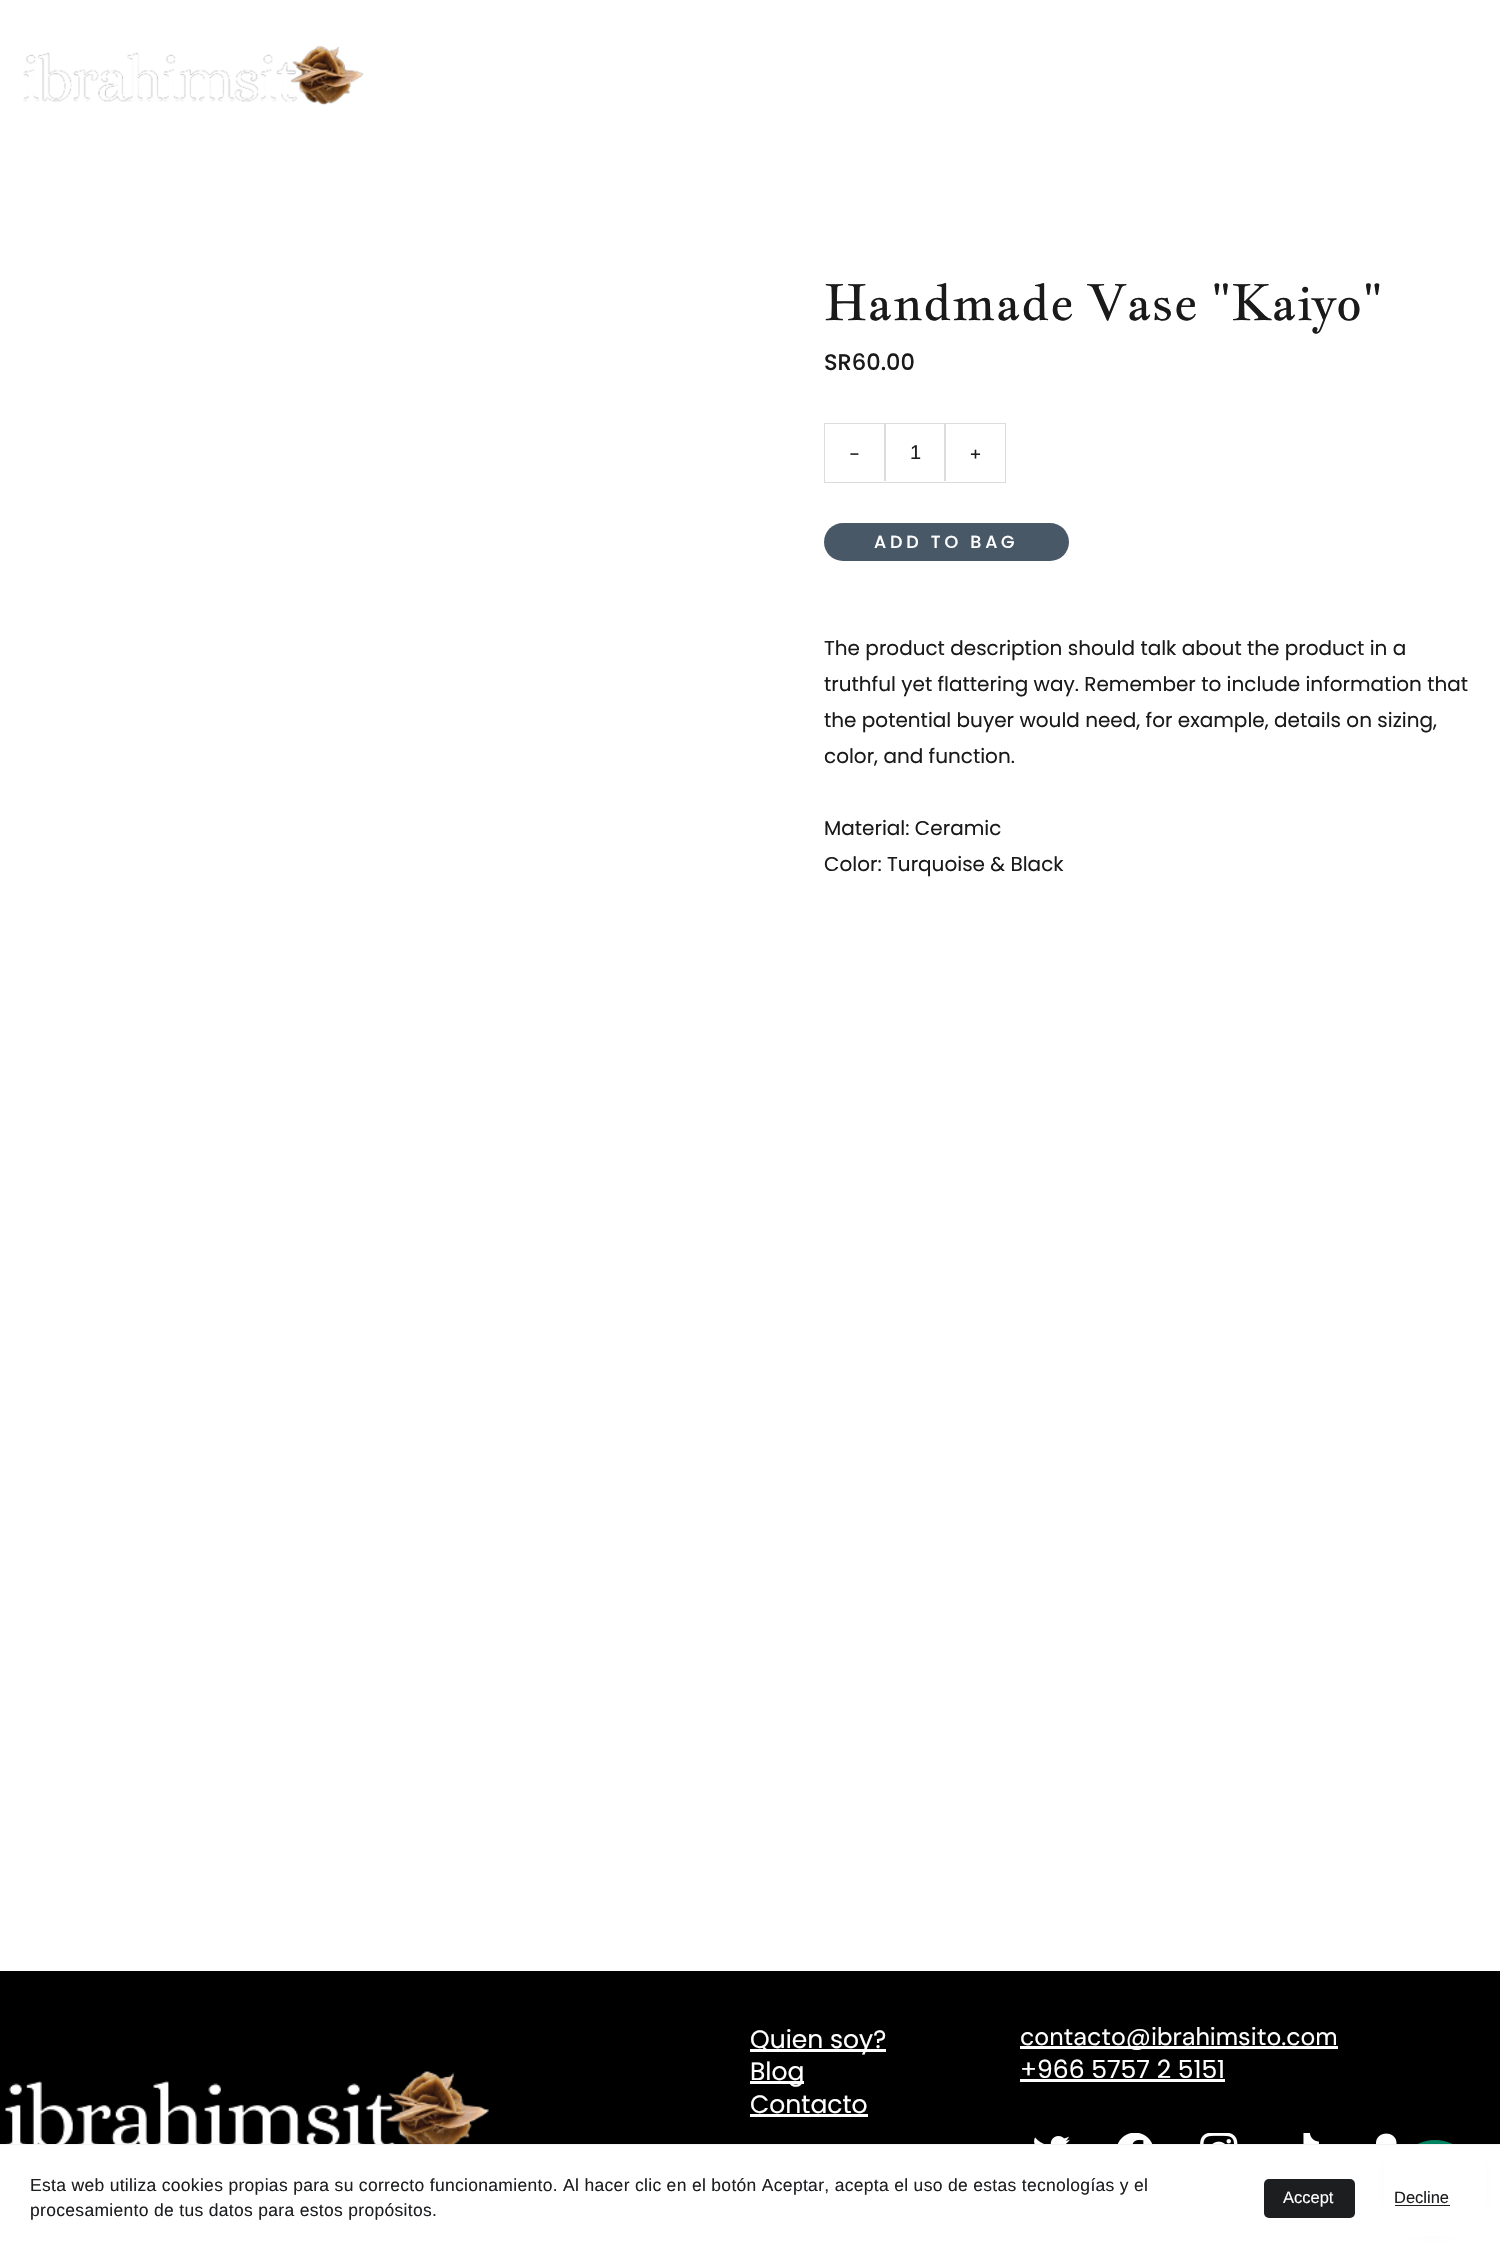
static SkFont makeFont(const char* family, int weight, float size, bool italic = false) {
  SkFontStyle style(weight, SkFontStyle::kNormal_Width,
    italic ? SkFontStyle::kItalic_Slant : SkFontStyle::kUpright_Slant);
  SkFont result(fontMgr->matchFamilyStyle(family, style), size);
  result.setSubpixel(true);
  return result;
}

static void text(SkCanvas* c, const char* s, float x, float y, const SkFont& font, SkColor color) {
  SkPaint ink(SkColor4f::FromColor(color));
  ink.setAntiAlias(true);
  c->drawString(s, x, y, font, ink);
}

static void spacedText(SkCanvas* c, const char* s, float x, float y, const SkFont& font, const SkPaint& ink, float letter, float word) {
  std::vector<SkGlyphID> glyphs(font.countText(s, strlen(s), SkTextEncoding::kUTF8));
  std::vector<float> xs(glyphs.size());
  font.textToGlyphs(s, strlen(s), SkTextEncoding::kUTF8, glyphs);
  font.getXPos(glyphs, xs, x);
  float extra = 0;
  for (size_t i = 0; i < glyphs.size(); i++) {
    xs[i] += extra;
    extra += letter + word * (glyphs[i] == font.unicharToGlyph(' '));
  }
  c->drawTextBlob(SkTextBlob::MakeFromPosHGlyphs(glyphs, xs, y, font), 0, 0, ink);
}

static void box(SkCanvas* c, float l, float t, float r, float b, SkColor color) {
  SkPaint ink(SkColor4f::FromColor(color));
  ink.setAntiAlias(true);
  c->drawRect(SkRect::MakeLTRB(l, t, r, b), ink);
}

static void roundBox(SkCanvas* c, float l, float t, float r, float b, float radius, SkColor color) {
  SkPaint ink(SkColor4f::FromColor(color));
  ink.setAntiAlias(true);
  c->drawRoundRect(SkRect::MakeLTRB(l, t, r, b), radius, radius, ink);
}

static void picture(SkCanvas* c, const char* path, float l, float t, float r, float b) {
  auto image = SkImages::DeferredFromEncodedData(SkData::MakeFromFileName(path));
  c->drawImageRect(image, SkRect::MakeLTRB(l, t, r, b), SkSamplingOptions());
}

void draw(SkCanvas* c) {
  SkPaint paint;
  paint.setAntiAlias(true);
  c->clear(0xffffffff);
  picture(c, "img_01.png", 23, 45, 364, 105);
  SkFont face1 = makeFont("Jacques Francois", 400, 50);
  text(c, "Handmade Vase \"Kaiyo\"", 824, 320, face1, 0xff1a1a1a);
  SkFont face2 = makeFont("Poppins", 500, 22.5f);
  text(c, "SR60.00", 824, 370, face2, 0xff1a1a1a);
  paint.setStyle(SkPaint::kStroke_Style);
  paint.setStrokeWidth(1);
  paint.setColor(0xffdadce0);
  c->drawRect(SkRect::MakeLTRB(824.5f, 423.5f, 1005.5f, 482.5f), paint);
  box(c, 884, 424, 886, 481, 0xffdadce0);
  SkFont face3 = makeFont("DM Sans", 400, 20);
  text(c, "-", 849, 460, face3, 0xff1d1e20);
  box(c, 944, 424, 946, 481, 0xffdadce0);
  SkFont face4 = makeFont("Liberation Sans", 400, 20);
  text(c, "1", 910, 459, face4, 0xff1d1e20);
  text(c, "+", 970, 460, face3, 0xff1d1e20);
  roundBox(c, 824, 523, 1069, 561, 19, 0xff495867);
  SkFont face5 = makeFont("Poppins", 500, 17.5f);
  paint.setStyle(SkPaint::kFill_Style);
  paint.setColor(0xffffffff);
  spacedText(c, "ADD TO BAG", 874, 548, face5, paint, 3.8f, 0);
  SkFont face6 = makeFont("Poppins", 400, 20);
  text(c, "The product description should talk about the product in a", 824, 655, face6, 0xff1a1a1a);
  text(c, "truthful yet flattering way. Remember to include information that", 824, 691, face6, 0xff1a1a1a);
  text(c, "the potential buyer would need, for example, details on sizing,", 824, 727, face6, 0xff1a1a1a);
  text(c, "color, and function.", 824, 763, face6, 0xff1a1a1a);
  text(c, "Material: Ceramic", 824, 835, face6, 0xff1a1a1a);
  text(c, "Color: Turquoise & Black", 824, 871, face6, 0xff1a1a1a);
  box(c, 0, 1971, 1500, 2144, 0xff000000);
  picture(c, "img_02.png", 5, 2071, 489, 2144);
  box(c, 750, 2049, 886, 2052, 0xffffffff);
  SkFont face7 = makeFont("Poppins", 400, 25);
  text(c, "Quien soy?", 750, 2048, face7, 0xffffffff);
  box(c, 750, 2081, 804, 2084, 0xffffffff);
  text(c, "Blog", 750, 2080, face7, 0xffffffff);
  text(c, "Contacto", 750, 2113, face7, 0xffffffff);
  box(c, 750, 2114, 868, 2117, 0xffffffff);
  box(c, 1020, 2046, 1338, 2049, 0xffffffff);
  SkFont face8 = makeFont("DM Sans", 400, 25);
  text(c, "contacto@ibrahimsito.com", 1020, 2045, face8, 0xffffffff);
  text(c, "+966 5757 2 5151", 1020, 2078, face7, 0xffffffff);
  box(c, 1020, 2079, 1225, 2082, 0xffffffff);
  picture(c, "img_03.png", 1034, 2136, 1070, 2144);
  picture(c, "img_04.png", 1117, 2133, 1153, 2144);
  picture(c, "img_05.png", 1200, 2133, 1238, 2144);
  picture(c, "img_06.png", 1303, 2133, 1319, 2144);
  picture(c, "img_07.png", 1376, 2133, 1397, 2144);
  paint.setColor(0x26000000);
  paint.setMaskFilter(SkMaskFilter::MakeBlur(kNormal_SkBlurStyle, 7.5f));
  c->drawRoundRect(SkRect::MakeLTRB(1395, 2145, 1475, 2225), 40, 40, paint);
  paint.setMaskFilter(nullptr);
  box(c, 1384, 2145, 1486, 2236, 0xffffffff);
  box(c, 0, 2144, 1500, 2145, 0xfff2f3f6);
  SkFont face9 = makeFont("Liberation Sans", 400, 17.5f);
  paint.setColor(0xff1d1e20);
  spacedText(c, "Esta web utiliza cookies propias para su correcto funcionamiento. Al hacer clic en el botón Aceptar, acepta el uso de estas tecnologías y el", 30, 2191, face9, paint, 0.31f, 0);
  spacedText(c, "procesamiento de tus datos para estos propósitos.", 30, 2216, face9, paint, 0.31f, 0);
  roundBox(c, 1264, 2179, 1355, 2218, 5, 0xff1d1e20);
  SkFont face10 = makeFont("Liberation Sans", 400, 16.5f);
  text(c, "Accept", 1283, 2203, face10, 0xffffffff);
  text(c, "Decline", 1394, 2203, face10, 0xff1d1e20);
  box(c, 1395, 2205, 1450, 2206, 0xff1d1e20);
  picture(c, "img_08.png", 1417, 2140, 1453, 2144);
}
